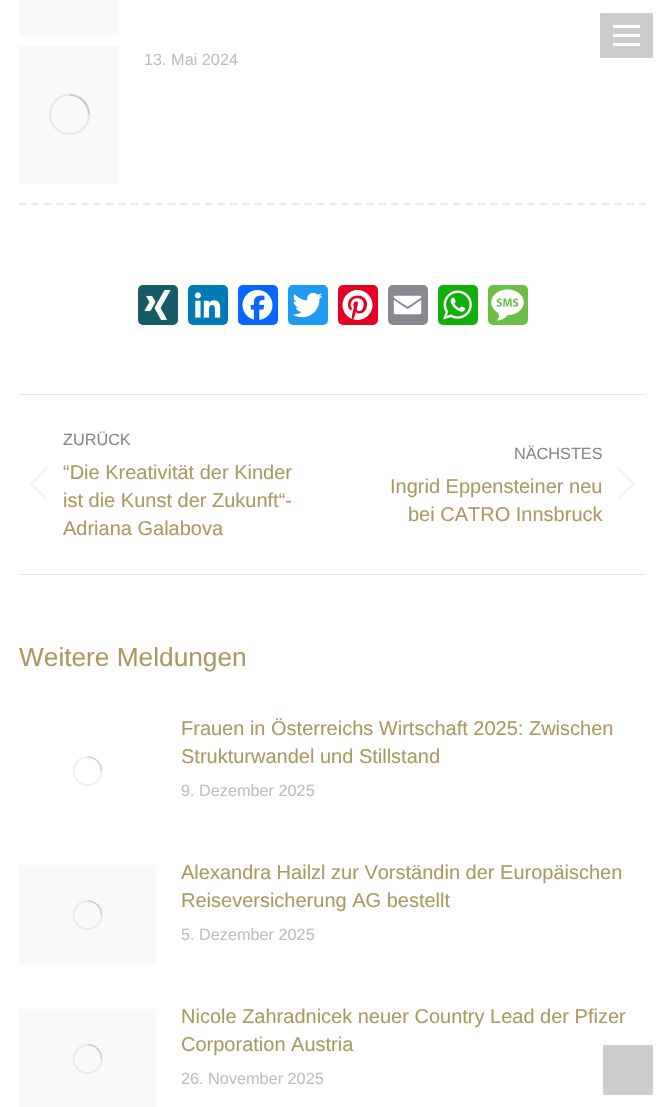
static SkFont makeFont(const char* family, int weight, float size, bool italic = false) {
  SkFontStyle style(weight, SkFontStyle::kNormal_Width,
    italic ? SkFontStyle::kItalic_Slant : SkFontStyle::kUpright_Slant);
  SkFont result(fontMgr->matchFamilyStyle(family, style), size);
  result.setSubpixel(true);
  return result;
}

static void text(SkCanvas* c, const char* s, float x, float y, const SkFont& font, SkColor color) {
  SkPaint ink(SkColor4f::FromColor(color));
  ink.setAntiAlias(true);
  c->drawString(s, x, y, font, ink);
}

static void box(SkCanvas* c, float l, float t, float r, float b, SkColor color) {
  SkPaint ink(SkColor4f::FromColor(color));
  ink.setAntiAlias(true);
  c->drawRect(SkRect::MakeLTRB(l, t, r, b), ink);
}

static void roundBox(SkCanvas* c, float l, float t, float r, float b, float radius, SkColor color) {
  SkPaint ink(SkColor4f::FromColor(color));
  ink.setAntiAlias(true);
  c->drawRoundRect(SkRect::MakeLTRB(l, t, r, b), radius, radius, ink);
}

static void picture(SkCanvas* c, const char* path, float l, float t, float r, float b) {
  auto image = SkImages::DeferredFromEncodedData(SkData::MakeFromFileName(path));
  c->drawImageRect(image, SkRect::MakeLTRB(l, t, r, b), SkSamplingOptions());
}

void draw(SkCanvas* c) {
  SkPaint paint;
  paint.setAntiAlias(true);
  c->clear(0xffffffff);
  roundBox(c, 600, 13, 653, 58, 1, 0xffcccccc);
  box(c, 613, 25, 640, 28, 0xffffffff);
  box(c, 613, 34, 640, 37, 0xffffffff);
  box(c, 613, 43, 640, 46, 0xffffffff);
  box(c, 19, 0, 119, 35, 0xfff8f9f9);
  box(c, 19, 46, 119, 184, 0xfff8f9f9);
  c->save();
  c->clipRect(SkRect::MakeLTRB(49, 94, 90, 135));
  paint.setStyle(SkPaint::kStroke_Style);
  paint.setStrokeWidth(2.2f);
  paint.setColor(0xffe6e8e9);
  c->drawCircle(69.5f, 114.5f, 19.5f, paint);
  c->restore();
  paint.setColor(0x40787d85);
  c->drawPath(SkPathBuilder().moveTo(89, 114.5f).cubicTo(89, 103.5f, 80, 95, 69.5f, 95).detach(), paint);
  SkFont face1 = makeFont("Liberation Sans", 400, 16.25f);
  text(c, "13. Mai 2024", 144, 65, face1, 0xffbcbec2);
  paint.setStrokeWidth(2.5f);
  paint.setColor(0xffebebeb);
  paint.setPathEffect(SkDashPathEffect::Make({{7.5f, 4.9f}}, 0));
  c->drawPath(SkPathBuilder().moveTo(19, 204).lineTo(646, 204).detach(), paint);
  paint.setPathEffect(nullptr);
  roundBox(c, 138, 285, 178, 325, 5, 0xff165b66);
  picture(c, "img_01.png", 144, 290, 171, 320);
  roundBox(c, 188, 285, 228, 325, 5, 0xff007bb5);
  picture(c, "img_02.png", 194, 292, 221, 318);
  roundBox(c, 238, 285, 278, 325, 5, 0xff0866ff);
  picture(c, "img_03.png", 242, 290, 273, 320);
  roundBox(c, 288, 285, 328, 325, 5, 0xff1d9bf0);
  picture(c, "img_04.png", 292, 292, 323, 318);
  roundBox(c, 338, 285, 378, 325, 5, 0xffe60023);
  picture(c, "img_05.png", 342, 290, 373, 320);
  roundBox(c, 388, 285, 428, 325, 5, 0xff888990);
  picture(c, "img_06.png", 393, 295, 422, 315);
  roundBox(c, 438, 285, 478, 325, 5, 0xff12af0a);
  picture(c, "img_07.png", 443, 290, 472, 320);
  roundBox(c, 488, 285, 528, 325, 5, 0xff6cbe45);
  picture(c, "img_08.png", 491, 289, 524, 321);
  box(c, 19, 394, 646, 395, 0xffe6e7e9);
  box(c, 19, 574, 646, 575, 0xffe6e7e9);
  text(c, "ZURÜCK", 63, 445, face1, 0xff84888e);
  picture(c, "img_09.png", 30, 467, 48, 500);
  SkFont face2 = makeFont("Liberation Sans", 400, 20);
  text(c, "“Die Kreativität der Kinder", 63, 479, face2, 0xffac995f);
  text(c, "ist die Kunst der Zukunft“-", 63, 507, face2, 0xffac995f);
  text(c, "Adriana Galabova", 63, 535, face2, 0xffac995f);
  text(c, "NÄCHSTES", 514, 459, face1, 0xff84888e);
  text(c, "Ingrid Eppensteiner neu", 390, 493, face2, 0xffac995f);
  text(c, "bei CATRO Innsbruck", 408, 521, face2, 0xffac995f);
  picture(c, "img_10.png", 617, 467, 635, 500);
  SkFont face3 = makeFont("Liberation Sans", 400, 26.25f);
  text(c, "Weitere Meldungen", 19, 666, face3, 0xffac995f);
  c->save();
  c->clipRect(SkRect::MakeLTRB(73, 756, 103, 786));
  paint.setStrokeWidth(1.6f);
  paint.setColor(0xffecedee);
  c->drawCircle(87.5f, 771, 14, paint);
  c->restore();
  paint.setColor(0x40787d85);
  c->drawPath(SkPathBuilder().moveTo(101.5f, 771).cubicTo(101.5f, 763.5f, 95.5f, 757, 87.5f, 757).detach(), paint);
  text(c, "Frauen in Österreichs Wirtschaft 2025: Zwischen", 181, 735, face2, 0xffac995f);
  text(c, "Strukturwandel und Stillstand", 181, 763, face2, 0xffac995f);
  text(c, "9. Dezember 2025", 181, 796, face1, 0xffbcbec2);
  box(c, 19, 865, 156, 965, 0xfff8f9f9);
  c->save();
  c->clipRect(SkRect::MakeLTRB(73, 900, 103, 930));
  paint.setColor(0xffe6e8e9);
  c->drawCircle(87.5f, 915, 14, paint);
  c->restore();
  paint.setColor(0x40787d85);
  c->drawPath(SkPathBuilder().moveTo(101.5f, 915).cubicTo(101.5f, 907, 95.5f, 901, 87.5f, 901).detach(), paint);
  text(c, "Alexandra Hailzl zur Vorständin der Europäischen", 181, 879, face2, 0xffac995f);
  text(c, "Reiseversicherung AG bestellt", 181, 907, face2, 0xffac995f);
  text(c, "5. Dezember 2025", 181, 940, face1, 0xffbcbec2);
  box(c, 19, 1009, 156, 1107, 0xfff8f9f9);
  c->save();
  c->clipRect(SkRect::MakeLTRB(73, 1044, 103, 1074));
  paint.setColor(0xffe6e8e9);
  c->drawCircle(87.5f, 1059, 14, paint);
  c->restore();
  paint.setColor(0x40787d85);
  c->drawPath(SkPathBuilder().moveTo(101.5f, 1059).cubicTo(101.5f, 1051, 95.5f, 1044.5f, 87.5f, 1044.5f).detach(), paint);
  text(c, "Nicole Zahradnicek neuer Country Lead der Pfizer", 181, 1023, face2, 0xffac995f);
  text(c, "Corporation Austria", 181, 1051, face2, 0xffac995f);
  text(c, "26. November 2025", 181, 1084, face1, 0xffbcbec2);
  roundBox(c, 603, 1045, 653, 1095, 1, 0xffcccccc);
}
